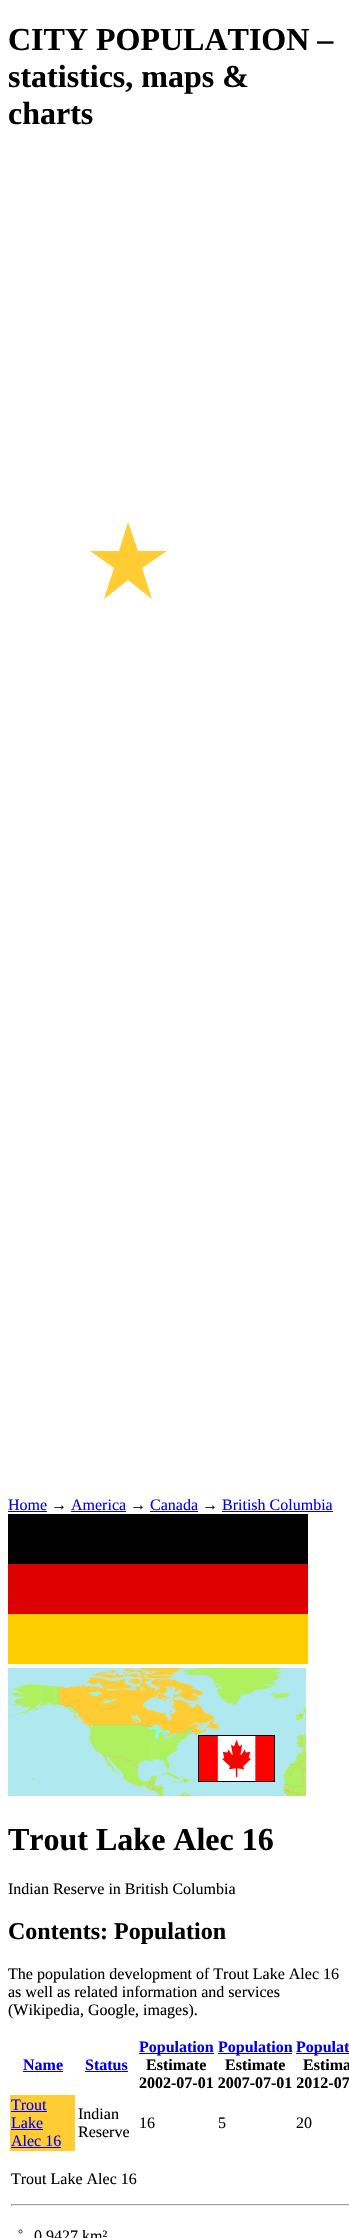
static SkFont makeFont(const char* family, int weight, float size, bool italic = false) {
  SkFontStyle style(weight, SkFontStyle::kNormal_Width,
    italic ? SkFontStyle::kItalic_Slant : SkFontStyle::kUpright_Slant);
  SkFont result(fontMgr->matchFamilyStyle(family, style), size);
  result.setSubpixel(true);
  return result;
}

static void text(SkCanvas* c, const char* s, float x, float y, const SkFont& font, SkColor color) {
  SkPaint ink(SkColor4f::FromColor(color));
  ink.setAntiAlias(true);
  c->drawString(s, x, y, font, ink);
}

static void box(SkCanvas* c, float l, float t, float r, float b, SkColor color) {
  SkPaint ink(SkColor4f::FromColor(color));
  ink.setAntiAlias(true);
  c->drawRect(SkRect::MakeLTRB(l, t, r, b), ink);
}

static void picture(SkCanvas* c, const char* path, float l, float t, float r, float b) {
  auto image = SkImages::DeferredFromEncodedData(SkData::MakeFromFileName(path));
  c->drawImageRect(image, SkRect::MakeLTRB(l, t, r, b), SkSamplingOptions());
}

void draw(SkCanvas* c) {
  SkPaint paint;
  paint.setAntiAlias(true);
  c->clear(0xffffffff);
  SkFont face1 = makeFont("Liberation Serif", 700, 32);
  text(c, "CITY POPULATION –", 8, 50, face1, 0xff000000);
  text(c, "statistics, maps &", 8, 87, face1, 0xff000000);
  text(c, "charts", 8, 124, face1, 0xff000000);
  paint.setColor(0xffffcc33);
  c->drawPath(SkPathBuilder(SkPathFillType::kEvenOdd).moveTo(128, 580).lineTo(104, 599).lineTo(114, 568).lineTo(90, 551).lineTo(119, 551).lineTo(128, 522).lineTo(138, 551).lineTo(167, 551).lineTo(142, 568).lineTo(152, 599).close().detach(), paint);
  SkFont face2 = makeFont("Liberation Serif", 400, 16);
  text(c, "Home", 8, 1510, face2, 0xff0000ee);
  box(c, 8, 1511, 47, 1512, 0xff0000ee);
  text(c, "→", 51, 1510, face2, 0xff000000);
  text(c, "America", 71, 1510, face2, 0xff0000ee);
  box(c, 71, 1511, 126, 1512, 0xff0000ee);
  text(c, "→", 130, 1510, face2, 0xff000000);
  text(c, "Canada", 150, 1510, face2, 0xff0000ee);
  box(c, 150, 1511, 198, 1512, 0xff0000ee);
  text(c, "→", 202, 1510, face2, 0xff000000);
  text(c, "British Columbia", 222, 1510, face2, 0xff0000ee);
  box(c, 222, 1511, 333, 1512, 0xff0000ee);
  box(c, 8, 1514, 308, 1564, 0xff000000);
  box(c, 8, 1564, 308, 1614, 0xffdd0000);
  box(c, 8, 1614, 308, 1664, 0xffffce00);
  picture(c, "img_01.png", 8, 1668, 306, 1796);
  text(c, "Trout Lake Alec 16", 8, 1850, face1, 0xff000000);
  text(c, "Indian Reserve in British Columbia", 8, 1894, face2, 0xff000000);
  SkFont face3 = makeFont("Liberation Serif", 700, 24);
  text(c, "Contents: Population", 8, 1939, face3, 0xff000000);
  text(c, "The population development of Trout Lake Alec 16", 8, 1979, face2, 0xff000000);
  text(c, "as well as related information and services", 8, 1997, face2, 0xff000000);
  text(c, "(Wikipedia, Google, images).", 8, 2015, face2, 0xff000000);
  box(c, 139, 2053, 214, 2054, 0xff0000ee);
  SkFont face4 = makeFont("Liberation Serif", 700, 16);
  text(c, "Population", 139, 2052, face4, 0xff0000ee);
  text(c, "Estimate", 146, 2070, face4, 0xff000000);
  text(c, "2002-07-01 2007-07-01 2012-07", 139, 2088, face4, 0xff000000);
  text(c, "Name", 23, 2070, face4, 0xff0000ee);
  box(c, 23, 2071, 63, 2072, 0xff0000ee);
  text(c, "Status", 85, 2070, face4, 0xff0000ee);
  box(c, 85, 2071, 128, 2072, 0xff0000ee);
  box(c, 218, 2053, 292, 2054, 0xff0000ee);
  text(c, "Population", 218, 2052, face4, 0xff0000ee);
  text(c, "Estimate", 225, 2070, face4, 0xff000000);
  box(c, 296, 2053, 349, 2054, 0xff0000ee);
  text(c, "Populat", 296, 2052, face4, 0xff0000ee);
  text(c, "Estima", 303, 2070, face4, 0xff000000);
  box(c, 10, 2095, 75, 2151, 0xffffcc33);
  text(c, "Trout", 11, 2110, face2, 0xff0000ee);
  box(c, 11, 2111, 47, 2112, 0xff0000ee);
  text(c, "Lake", 11, 2128, face2, 0xff0000ee);
  box(c, 11, 2129, 43, 2130, 0xff0000ee);
  text(c, "Alec 16", 11, 2146, face2, 0xff0000ee);
  box(c, 11, 2147, 61, 2148, 0xff0000ee);
  text(c, "Indian", 78, 2119, face2, 0xff000000);
  text(c, "Reserve", 78, 2137, face2, 0xff000000);
  text(c, "16", 139, 2128, face2, 0xff000000);
  text(c, "5", 218, 2128, face2, 0xff000000);
  text(c, "20", 296, 2128, face2, 0xff000000);
  text(c, "Trout Lake Alec 16", 11, 2184, face2, 0xff000000);
  box(c, 11, 2204, 349, 2205, 0xff9f9f9f);
  box(c, 11, 2205, 349, 2206, 0xffeeeeee);
  box(c, 11, 2204, 12, 2206, 0xff9f9f9f);
  paint.setStyle(SkPaint::kStroke_Style);
  paint.setStrokeWidth(0.8f);
  paint.setColor(0xff000000);
  c->drawCircle(20.5f, 2231.5f, 1.6f, paint);
  text(c, "0.9427 km²", 34, 2241, face2, 0xff000000);
}
